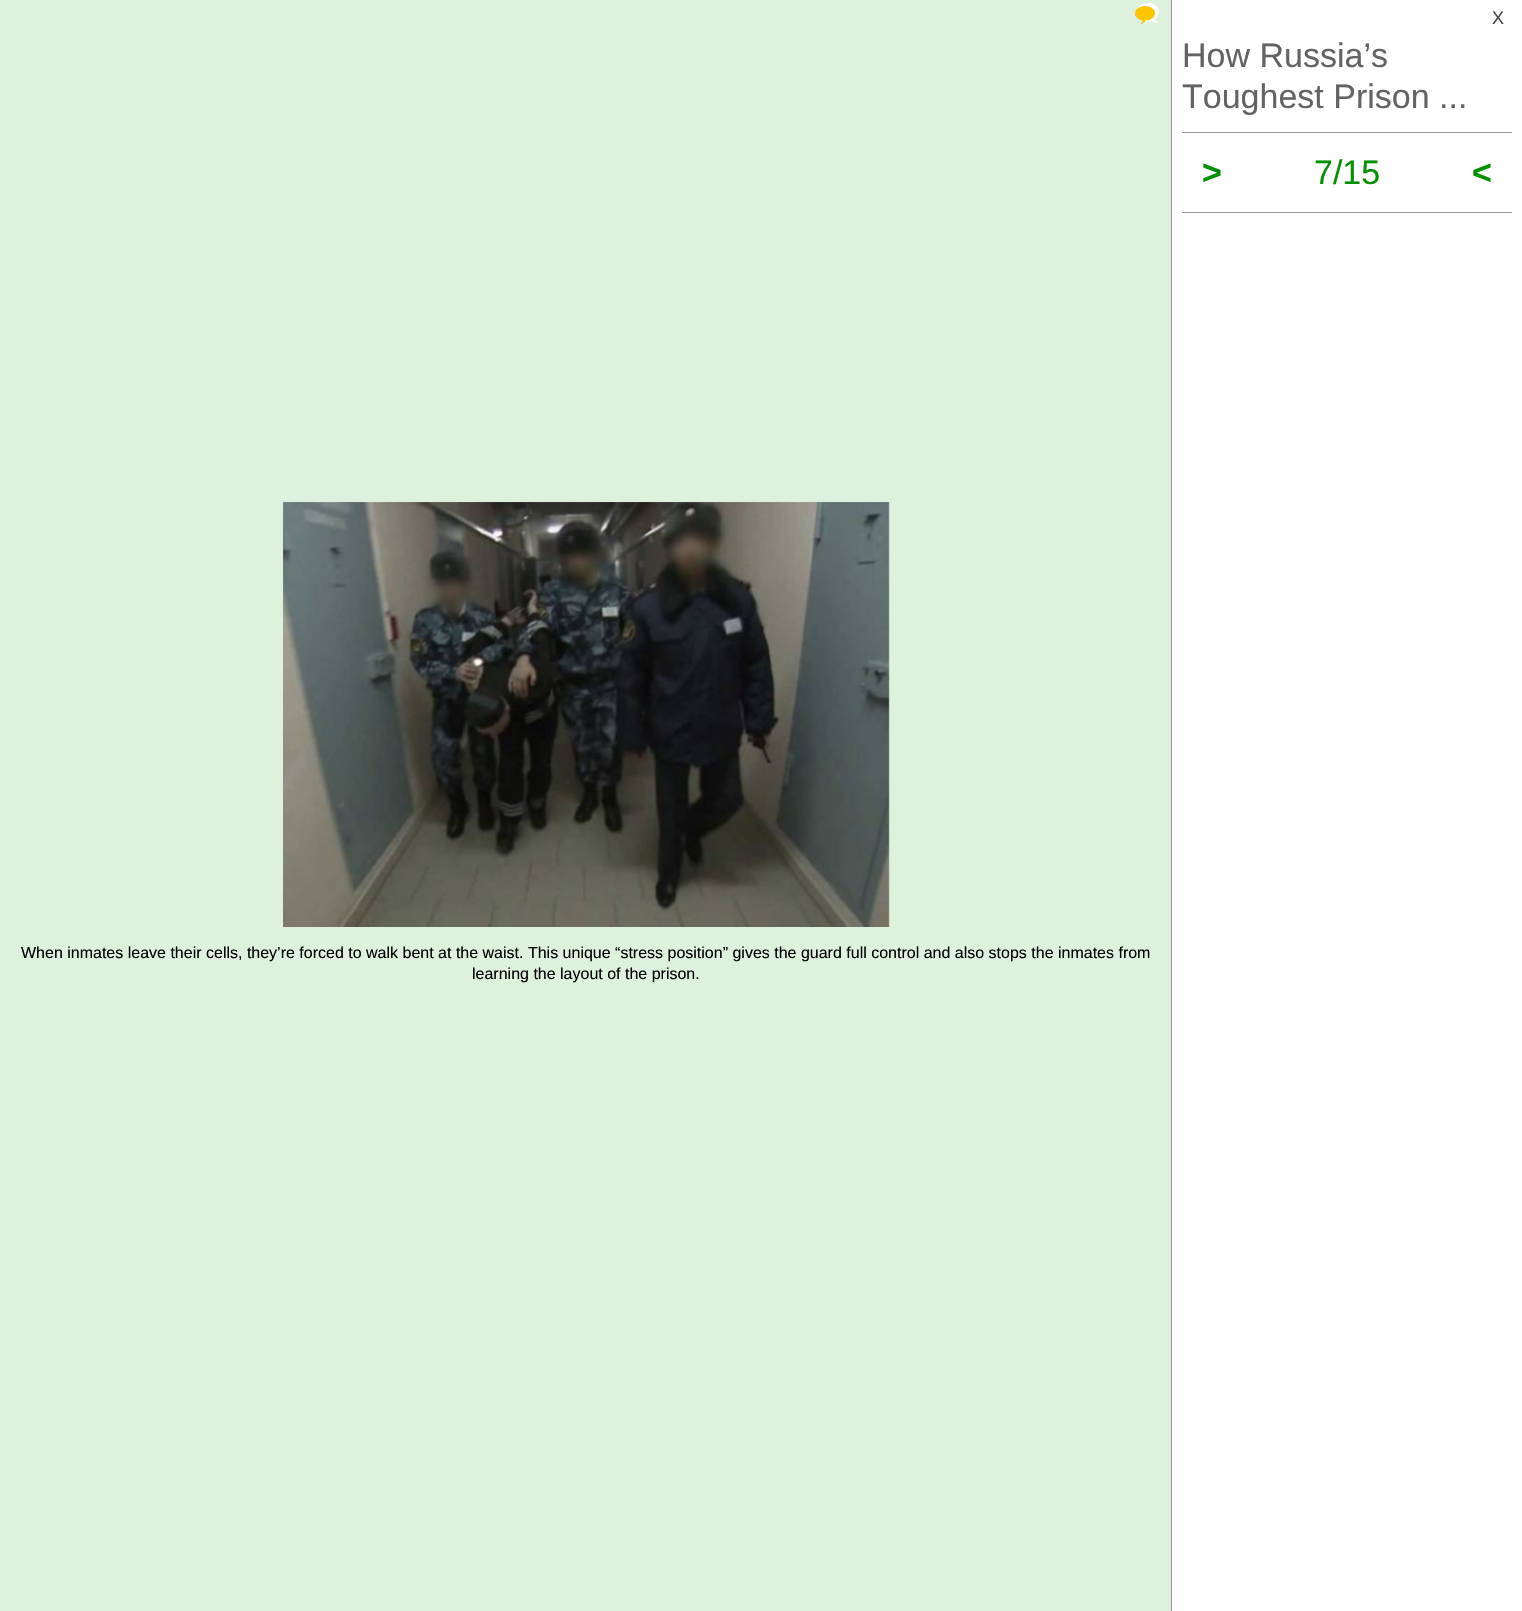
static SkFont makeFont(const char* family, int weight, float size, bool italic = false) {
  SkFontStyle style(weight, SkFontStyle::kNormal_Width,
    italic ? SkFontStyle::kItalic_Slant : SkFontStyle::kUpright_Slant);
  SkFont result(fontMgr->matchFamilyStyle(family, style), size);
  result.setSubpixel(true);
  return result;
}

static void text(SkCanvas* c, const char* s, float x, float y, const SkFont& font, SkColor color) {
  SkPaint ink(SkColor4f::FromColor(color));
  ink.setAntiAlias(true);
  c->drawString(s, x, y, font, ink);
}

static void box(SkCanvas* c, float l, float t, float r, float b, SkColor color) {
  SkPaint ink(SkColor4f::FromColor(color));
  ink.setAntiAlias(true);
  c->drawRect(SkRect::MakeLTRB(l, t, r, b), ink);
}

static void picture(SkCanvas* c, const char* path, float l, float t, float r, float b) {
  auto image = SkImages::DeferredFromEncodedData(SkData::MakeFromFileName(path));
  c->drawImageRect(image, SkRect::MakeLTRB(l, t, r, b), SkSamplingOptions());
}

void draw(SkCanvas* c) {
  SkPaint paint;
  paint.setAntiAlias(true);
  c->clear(0xffddf1dd);
  box(c, 1172, 0, 1522, 1611, 0xffffffff);
  box(c, 1171, 0, 1172, 1611, 0xff999999);
  SkFont face1 = makeFont("Liberation Sans", 400, 18);
  text(c, "X", 1492, 24, face1, 0xff444444);
  SkFont face2 = makeFont("Liberation Sans", 400, 34);
  text(c, "How Russia’s", 1182, 67, face2, 0xff636363);
  text(c, "Toughest Prison ...", 1182, 108, face2, 0xff636363);
  box(c, 1182, 132, 1512, 133, 0xff999999);
  box(c, 1182, 212, 1512, 213, 0xff999999);
  SkFont face3 = makeFont("Liberation Sans", 700, 34);
  text(c, ">", 1202, 184, face3, 0xff009000);
  text(c, "7/15", 1314, 184, face2, 0xff009000);
  text(c, "<", 1472, 184, face3, 0xff009000);
  picture(c, "img_01.png", 1135, 3, 1159, 24);
  picture(c, "img_02.png", 283, 502, 890, 927);
  SkFont face4 = makeFont("Liberation Sans", 400, 16);
  text(c, "When inmates leave their cells, they’re forced to walk bent at the waist. This unique “stress position” gives the guard full control and also stops the inmates from", 21, 958, face4, 0xff000000);
  text(c, "learning the layout of the prison.", 472, 979, face4, 0xff000000);
}
